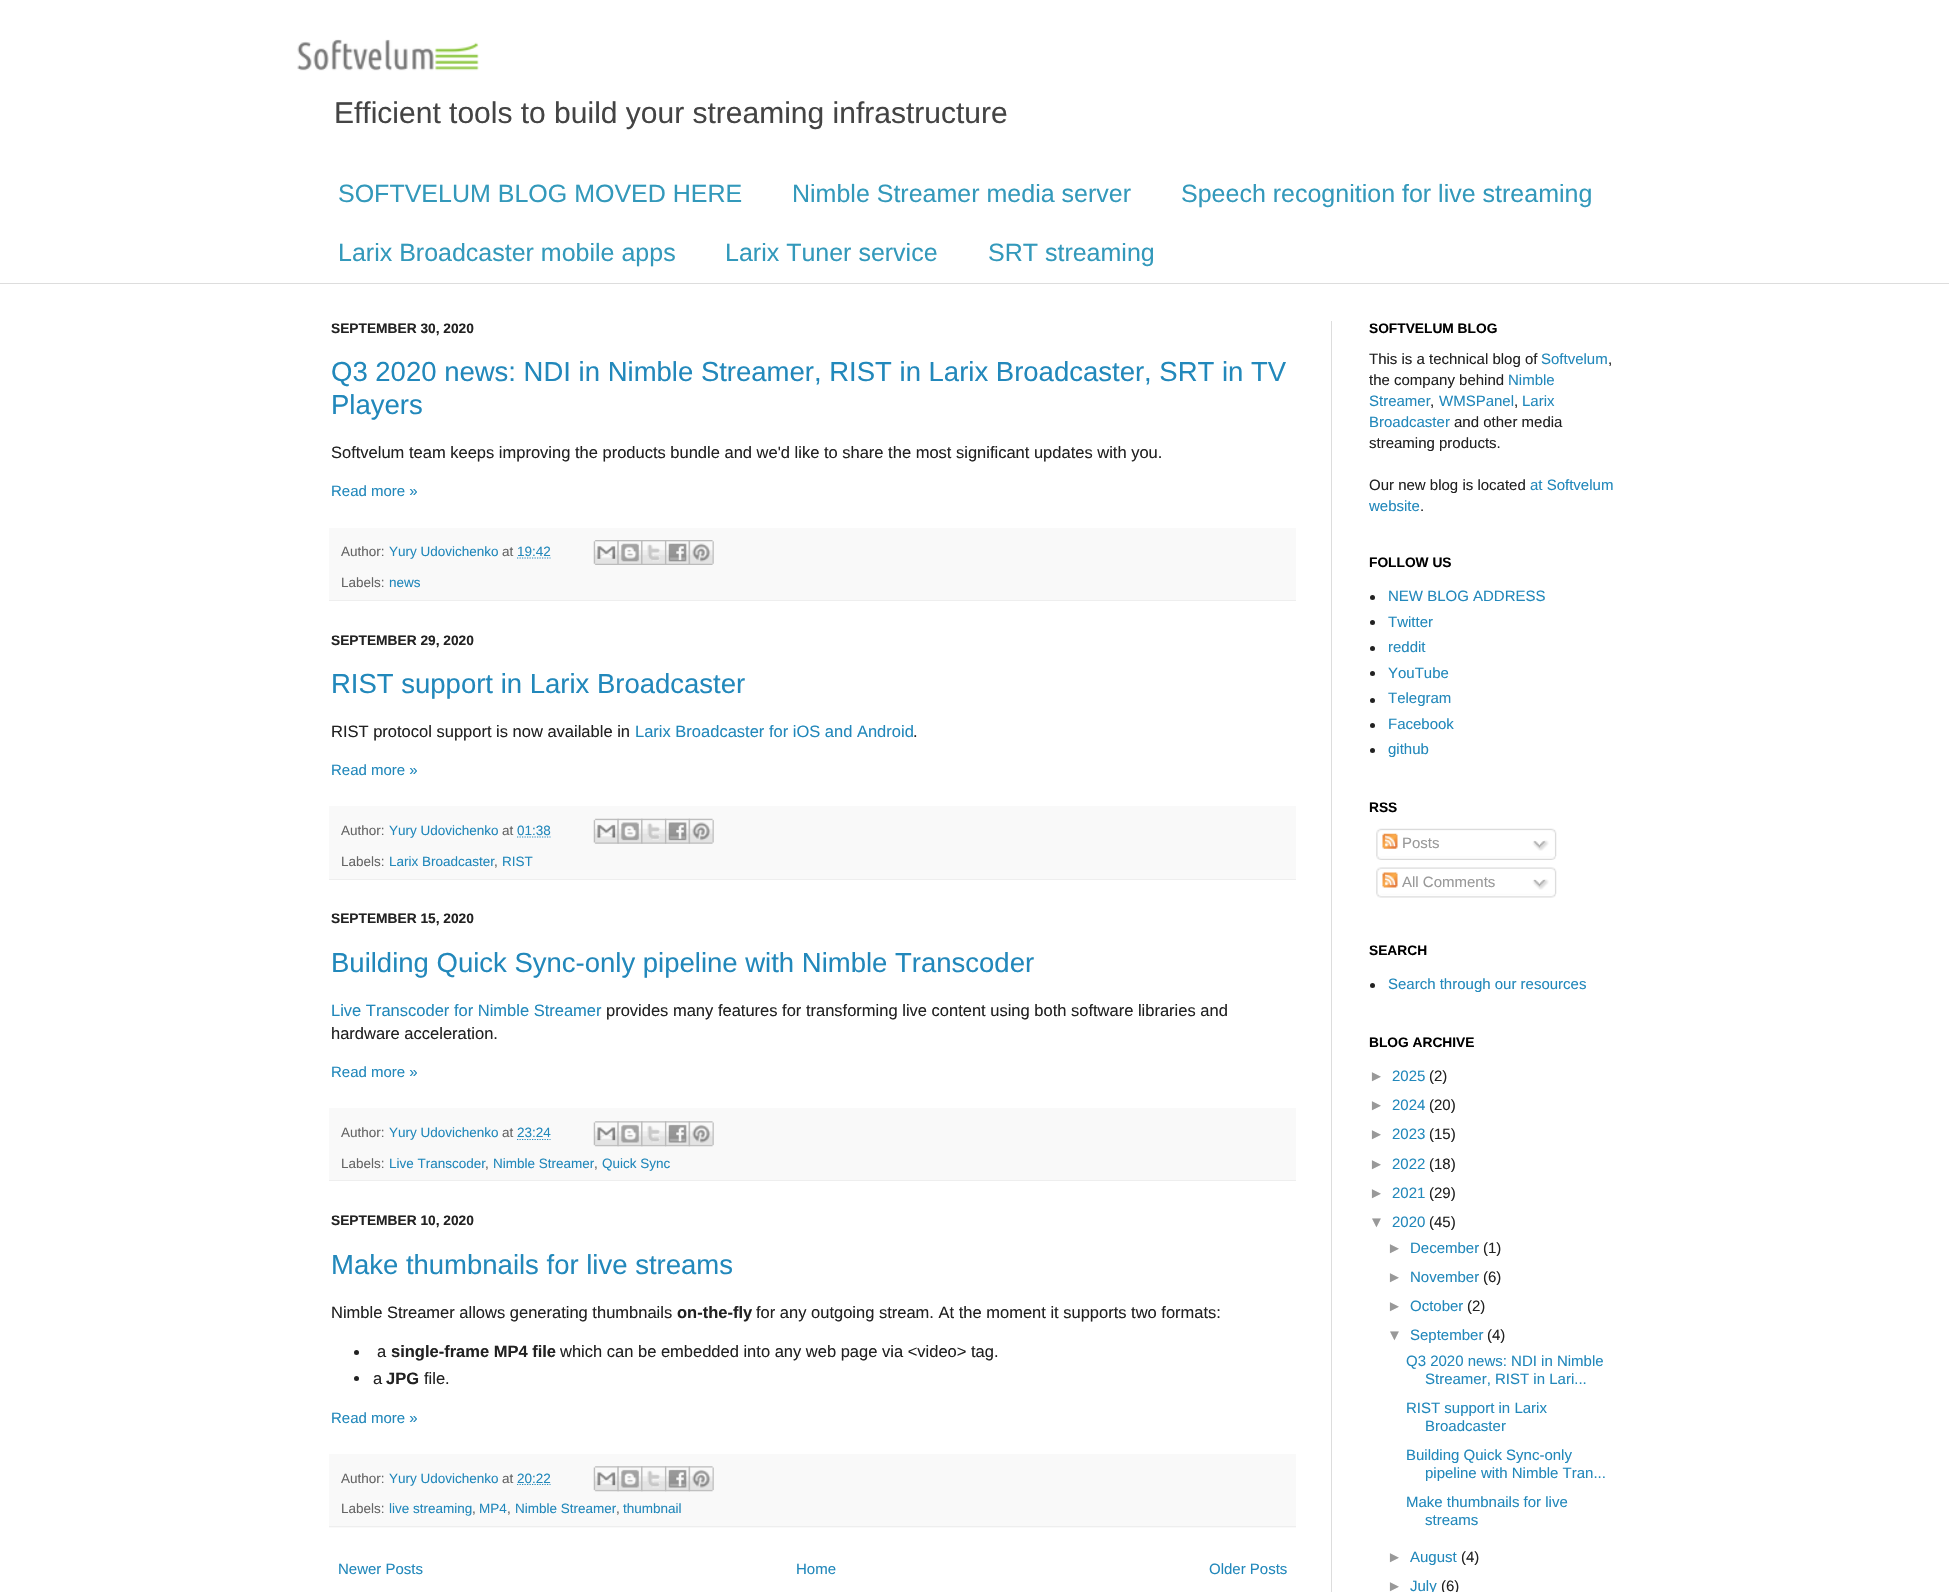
static SkFont makeFont(const char* family, int weight, float size, bool italic = false) {
  SkFontStyle style(weight, SkFontStyle::kNormal_Width,
    italic ? SkFontStyle::kItalic_Slant : SkFontStyle::kUpright_Slant);
  SkFont result(fontMgr->matchFamilyStyle(family, style), size);
  result.setSubpixel(true);
  return result;
}

static void text(SkCanvas* c, const char* s, float x, float y, const SkFont& font, SkColor color) {
  SkPaint ink(SkColor4f::FromColor(color));
  ink.setAntiAlias(true);
  c->drawString(s, x, y, font, ink);
}

static void box(SkCanvas* c, float l, float t, float r, float b, SkColor color) {
  SkPaint ink(SkColor4f::FromColor(color));
  ink.setAntiAlias(true);
  c->drawRect(SkRect::MakeLTRB(l, t, r, b), ink);
}

static void picture(SkCanvas* c, const char* path, float l, float t, float r, float b) {
  auto image = SkImages::DeferredFromEncodedData(SkData::MakeFromFileName(path));
  c->drawImageRect(image, SkRect::MakeLTRB(l, t, r, b), SkSamplingOptions());
}

void draw(SkCanvas* c) {
  SkPaint paint;
  paint.setAntiAlias(true);
  c->clear(0xffffffff);
  picture(c, "img_01.png", 297, 39, 479, 71);
  SkFont face1 = makeFont("Liberation Sans", 400, 30);
  text(c, "Efficient tools to build your streaming infrastructure", 334, 123, face1, 0xff444444);
  SkFont face2 = makeFont("Liberation Sans", 400, 25);
  text(c, "SOFTVELUM BLOG MOVED HERE", 338, 202, face2, 0xff3399bb);
  text(c, "Nimble Streamer media server", 792, 202, face2, 0xff3399bb);
  text(c, "Speech recognition for live streaming", 1181, 202, face2, 0xff3399bb);
  text(c, "Larix Broadcaster mobile apps", 338, 261, face2, 0xff3399bb);
  text(c, "Larix Tuner service", 725, 261, face2, 0xff3399bb);
  text(c, "SRT streaming", 988, 261, face2, 0xff3399bb);
  box(c, 0, 283, 1949, 284, 0xffdddddd);
  box(c, 1331, 321, 1332, 1592, 0xffdddddd);
  SkFont face3 = makeFont("Liberation Sans", 700, 13.75f);
  text(c, "SEPTEMBER 30, 2020", 331, 333, face3, 0xff222222);
  SkFont face4 = makeFont("Liberation Sans", 400, 27.5f);
  text(c, "Q3 2020 news: NDI in Nimble Streamer, RIST in Larix Broadcaster, SRT in TV", 331, 381, face4, 0xff2288bb);
  text(c, "Players", 331, 414, face4, 0xff2288bb);
  SkFont face5 = makeFont("Liberation Sans", 400, 16.5f);
  text(c, "Softvelum team keeps improving the products bundle and we'd like to share the most significant updates with you.", 331, 458, face5, 0xff222222);
  SkFont face6 = makeFont("Liberation Sans", 400, 15);
  text(c, "Read more »", 331, 496, face6, 0xff2288bb);
  box(c, 329, 528, 1296, 600, 0xfff9f9f9);
  box(c, 329, 600, 1296, 601, 0xffeeeeee);
  SkFont face7 = makeFont("Liberation Sans", 400, 13.5f);
  text(c, "Author:", 341, 556, face7, 0xff666666);
  text(c, "Yury Udovichenko", 389, 556, face7, 0xff2288bb);
  text(c, "at", 502, 556, face7, 0xff666666);
  text(c, "19:42", 517, 556, face7, 0xff2288bb);
  paint.setStyle(SkPaint::kStroke_Style);
  paint.setStrokeWidth(1.2f);
  paint.setColor(0xff2288bb);
  paint.setPathEffect(SkDashPathEffect::Make({{1.25f, 1.25f}}, 0));
  c->drawPath(SkPathBuilder().moveTo(517, 558).lineTo(550.5f, 558).detach(), paint);
  paint.setPathEffect(nullptr);
  picture(c, "img_02.png", 593, 540, 618, 565);
  picture(c, "img_03.png", 617, 540, 642, 565);
  picture(c, "img_04.png", 641, 540, 665, 565);
  picture(c, "img_05.png", 665, 540, 689, 565);
  picture(c, "img_06.png", 688, 540, 714, 565);
  text(c, "Labels:", 341, 587, face7, 0xff666666);
  text(c, "news", 389, 587, face7, 0xff2288bb);
  text(c, "SEPTEMBER 29, 2020", 331, 645, face3, 0xff222222);
  text(c, "RIST support in Larix Broadcaster", 331, 693, face4, 0xff2288bb);
  text(c, "RIST protocol support is now available in", 331, 737, face5, 0xff222222);
  text(c, "Larix Broadcaster for iOS and Android", 635, 737, face5, 0xff2288bb);
  text(c, ".", 913, 737, face5, 0xff222222);
  text(c, "Read more »", 331, 775, face6, 0xff2288bb);
  box(c, 329, 806, 1296, 879, 0xfff9f9f9);
  box(c, 329, 879, 1296, 880, 0xffeeeeee);
  text(c, "Author:", 341, 835, face7, 0xff666666);
  text(c, "Yury Udovichenko", 389, 835, face7, 0xff2288bb);
  text(c, "at", 502, 835, face7, 0xff666666);
  text(c, "01:38", 517, 835, face7, 0xff2288bb);
  paint.setPathEffect(SkDashPathEffect::Make({{1.25f, 1.25f}}, 0));
  c->drawPath(SkPathBuilder().moveTo(517, 837).lineTo(550.5f, 837).detach(), paint);
  paint.setPathEffect(nullptr);
  picture(c, "img_07.png", 593, 818, 619, 844);
  picture(c, "img_08.png", 617, 818, 643, 844);
  picture(c, "img_09.png", 641, 818, 667, 844);
  picture(c, "img_10.png", 665, 818, 690, 844);
  picture(c, "img_11.png", 688, 818, 714, 844);
  text(c, "Labels:", 341, 866, face7, 0xff666666);
  text(c, "Larix Broadcaster", 389, 866, face7, 0xff2288bb);
  text(c, ",", 494, 866, face7, 0xff666666);
  text(c, "RIST", 502, 866, face7, 0xff2288bb);
  text(c, "SEPTEMBER 15, 2020", 331, 923, face3, 0xff222222);
  text(c, "Building Quick Sync-only pipeline with Nimble Transcoder", 331, 972, face4, 0xff2288bb);
  text(c, "Live Transcoder for Nimble Streamer", 331, 1016, face5, 0xff2288bb);
  text(c, "provides many features for transforming live content using both software libraries and", 606, 1016, face5, 0xff222222);
  text(c, "hardware acceleration.", 331, 1039, face5, 0xff222222);
  text(c, "Read more »", 331, 1077, face6, 0xff2288bb);
  box(c, 329, 1108, 1296, 1180, 0xfff9f9f9);
  box(c, 329, 1180, 1296, 1181, 0xffeeeeee);
  text(c, "Author:", 341, 1137, face7, 0xff666666);
  text(c, "Yury Udovichenko", 389, 1137, face7, 0xff2288bb);
  text(c, "at", 502, 1137, face7, 0xff666666);
  text(c, "23:24", 517, 1137, face7, 0xff2288bb);
  paint.setPathEffect(SkDashPathEffect::Make({{1.25f, 1.25f}}, 0));
  c->drawPath(SkPathBuilder().moveTo(517, 1139.5f).lineTo(550.5f, 1139.5f).detach(), paint);
  paint.setPathEffect(nullptr);
  picture(c, "img_12.png", 593, 1121, 619, 1147);
  picture(c, "img_13.png", 617, 1121, 643, 1147);
  picture(c, "img_14.png", 641, 1121, 667, 1147);
  picture(c, "img_15.png", 665, 1121, 690, 1147);
  picture(c, "img_16.png", 688, 1121, 714, 1147);
  text(c, "Labels:", 341, 1168, face7, 0xff666666);
  text(c, "Live Transcoder", 389, 1168, face7, 0xff2288bb);
  text(c, ",", 485, 1168, face7, 0xff666666);
  text(c, "Nimble Streamer", 493, 1168, face7, 0xff2288bb);
  text(c, ",", 594, 1168, face7, 0xff666666);
  text(c, "Quick Sync", 602, 1168, face7, 0xff2288bb);
  text(c, "SEPTEMBER 10, 2020", 331, 1225, face3, 0xff222222);
  text(c, "Make thumbnails for live streams", 331, 1274, face4, 0xff2288bb);
  text(c, "Nimble Streamer allows generating thumbnails", 331, 1318, face5, 0xff222222);
  SkFont face8 = makeFont("Liberation Sans", 700, 16.5f);
  text(c, "on-the-fly", 677, 1318, face8, 0xff222222);
  text(c, "for any outgoing stream. At the moment it supports two formats:", 756, 1318, face5, 0xff222222);
  paint.setStyle(SkPaint::kFill_Style);
  paint.setColor(0xff222222);
  c->drawCircle(356.5f, 1352.5f, 2.5f, paint);
  text(c, "a", 377, 1357, face5, 0xff222222);
  text(c, "single-frame MP4 file", 391, 1357, face8, 0xff222222);
  text(c, "which can be embedded into any web page via <video> tag.", 560, 1357, face5, 0xff222222);
  c->drawCircle(356.5f, 1378.5f, 2.5f, paint);
  text(c, "a", 373, 1384, face5, 0xff222222);
  text(c, "JPG", 386, 1384, face8, 0xff222222);
  text(c, "file.", 424, 1384, face5, 0xff222222);
  text(c, "Read more »", 331, 1423, face6, 0xff2288bb);
  box(c, 329, 1454, 1296, 1528, 0xfff9f9f9);
  box(c, 329, 1526, 1296, 1527, 0xffeeeeee);
  text(c, "Author:", 341, 1483, face7, 0xff666666);
  text(c, "Yury Udovichenko", 389, 1483, face7, 0xff2288bb);
  text(c, "at", 502, 1483, face7, 0xff666666);
  paint.setStyle(SkPaint::kStroke_Style);
  paint.setColor(0xff2288bb);
  paint.setPathEffect(SkDashPathEffect::Make({{1.25f, 1.25f}}, 0));
  c->drawPath(SkPathBuilder().moveTo(517, 1484.5f).lineTo(550.5f, 1484.5f).detach(), paint);
  paint.setPathEffect(nullptr);
  text(c, "20:22", 517, 1483, face7, 0xff2288bb);
  picture(c, "img_12.png", 593, 1466, 619, 1492);
  picture(c, "img_13.png", 617, 1466, 643, 1492);
  picture(c, "img_14.png", 641, 1466, 667, 1492);
  picture(c, "img_15.png", 665, 1466, 690, 1492);
  picture(c, "img_16.png", 688, 1466, 714, 1492);
  text(c, "Labels:", 341, 1513, face7, 0xff666666);
  text(c, "live streaming", 389, 1513, face7, 0xff2288bb);
  text(c, ",", 472, 1513, face7, 0xff666666);
  text(c, "MP4", 479, 1513, face7, 0xff2288bb);
  text(c, ",", 507, 1513, face7, 0xff666666);
  text(c, "Nimble Streamer", 515, 1513, face7, 0xff2288bb);
  text(c, ",", 616, 1513, face7, 0xff666666);
  text(c, "thumbnail", 623, 1513, face7, 0xff2288bb);
  text(c, "Newer Posts", 338, 1574, face6, 0xff2288bb);
  text(c, "Home", 796, 1574, face6, 0xff2288bb);
  text(c, "Older Posts", 1209, 1574, face6, 0xff2288bb);
  text(c, "SOFTVELUM BLOG", 1369, 333, face3, 0xff000000);
  text(c, "This is a technical blog of", 1369, 364, face6, 0xff222222);
  text(c, "Softvelum", 1541, 364, face6, 0xff2288bb);
  text(c, ",", 1608, 364, face6, 0xff222222);
  text(c, "the company behind", 1369, 385, face6, 0xff222222);
  text(c, "Nimble", 1508, 385, face6, 0xff2288bb);
  text(c, "Streamer", 1369, 406, face6, 0xff2288bb);
  text(c, ",", 1430, 406, face6, 0xff222222);
  text(c, "WMSPanel", 1439, 406, face6, 0xff2288bb);
  text(c, ",", 1514, 406, face6, 0xff222222);
  text(c, "Larix", 1522, 406, face6, 0xff2288bb);
  text(c, "Broadcaster", 1369, 427, face6, 0xff2288bb);
  text(c, "and other media", 1454, 427, face6, 0xff222222);
  text(c, "streaming products.", 1369, 448, face6, 0xff222222);
  text(c, "Our new blog is located", 1369, 490, face6, 0xff222222);
  text(c, "at Softvelum", 1530, 490, face6, 0xff2288bb);
  text(c, "website", 1369, 511, face6, 0xff2288bb);
  text(c, ".", 1420, 511, face6, 0xff222222);
  text(c, "FOLLOW US", 1369, 567, face3, 0xff000000);
  paint.setStyle(SkPaint::kFill_Style);
  paint.setColor(0xff222222);
  c->drawCircle(1372.5f, 597.5f, 2.5f, paint);
  text(c, "NEW BLOG ADDRESS", 1388, 601, face6, 0xff2288bb);
  c->drawCircle(1372.5f, 622.5f, 2.5f, paint);
  text(c, "Twitter", 1388, 627, face6, 0xff2288bb);
  c->drawCircle(1372.5f, 648.5f, 2.5f, paint);
  text(c, "reddit", 1388, 652, face6, 0xff2288bb);
  c->drawCircle(1372.5f, 673.5f, 2.5f, paint);
  text(c, "YouTube", 1388, 678, face6, 0xff2288bb);
  c->drawCircle(1372.5f, 700.5f, 2.5f, paint);
  text(c, "Telegram", 1388, 703, face6, 0xff2288bb);
  c->drawCircle(1372.5f, 725.5f, 2.5f, paint);
  text(c, "Facebook", 1388, 729, face6, 0xff2288bb);
  c->drawCircle(1372.5f, 750.5f, 2.5f, paint);
  text(c, "github", 1388, 754, face6, 0xff2288bb);
  text(c, "RSS", 1369, 812, face3, 0xff000000);
  picture(c, "img_17.png", 1376, 828, 1557, 857);
  picture(c, "img_18.png", 1382, 833, 1398, 849);
  text(c, "Posts", 1402, 848, face6, 0xff999999);
  picture(c, "img_19.png", 1532, 840, 1549, 851);
  picture(c, "img_20.png", 1376, 856, 1556, 860);
  picture(c, "img_21.png", 1376, 867, 1557, 894);
  picture(c, "img_22.png", 1382, 872, 1398, 888);
  text(c, "All Comments", 1402, 887, face6, 0xff999999);
  picture(c, "img_23.png", 1532, 879, 1549, 890);
  picture(c, "img_24.png", 1376, 893, 1556, 898);
  text(c, "SEARCH", 1369, 955, face3, 0xff000000);
  c->drawCircle(1372.5f, 985.5f, 2.5f, paint);
  text(c, "Search through our resources", 1388, 989, face6, 0xff2288bb);
  text(c, "BLOG ARCHIVE", 1369, 1047, face3, 0xff000000);
  text(c, "►", 1369, 1081, face6, 0xff999999);
  text(c, "2025", 1392, 1081, face6, 0xff2288bb);
  text(c, "(2)", 1429, 1081, face6, 0xff222222);
  text(c, "►", 1369, 1110, face6, 0xff999999);
  text(c, "2024", 1392, 1110, face6, 0xff2288bb);
  text(c, "(20)", 1429, 1110, face6, 0xff222222);
  text(c, "►", 1369, 1139, face6, 0xff999999);
  text(c, "2023", 1392, 1139, face6, 0xff2288bb);
  text(c, "(15)", 1429, 1139, face6, 0xff222222);
  text(c, "►", 1369, 1169, face6, 0xff999999);
  text(c, "2022", 1392, 1169, face6, 0xff2288bb);
  text(c, "(18)", 1429, 1169, face6, 0xff222222);
  text(c, "►", 1369, 1198, face6, 0xff999999);
  text(c, "2021", 1392, 1198, face6, 0xff2288bb);
  text(c, "(29)", 1429, 1198, face6, 0xff222222);
  text(c, "▼", 1369, 1227, face6, 0xff999999);
  text(c, "2020", 1392, 1227, face6, 0xff2288bb);
  text(c, "(45)", 1429, 1227, face6, 0xff222222);
  text(c, "►", 1387, 1253, face6, 0xff999999);
  text(c, "December", 1410, 1253, face6, 0xff2288bb);
  text(c, "(1)", 1483, 1253, face6, 0xff222222);
  text(c, "►", 1387, 1282, face6, 0xff999999);
  text(c, "November", 1410, 1282, face6, 0xff2288bb);
  text(c, "(6)", 1483, 1282, face6, 0xff222222);
  text(c, "►", 1387, 1311, face6, 0xff999999);
  text(c, "October", 1410, 1311, face6, 0xff2288bb);
  text(c, "(2)", 1467, 1311, face6, 0xff222222);
  text(c, "▼", 1387, 1340, face6, 0xff999999);
  text(c, "September", 1410, 1340, face6, 0xff2288bb);
  text(c, "(4)", 1487, 1340, face6, 0xff222222);
  text(c, "Q3 2020 news: NDI in Nimble", 1406, 1366, face6, 0xff2288bb);
  text(c, "Streamer, RIST in Lari...", 1425, 1384, face6, 0xff2288bb);
  text(c, "RIST support in Larix", 1406, 1413, face6, 0xff2288bb);
  text(c, "Broadcaster", 1425, 1431, face6, 0xff2288bb);
  text(c, "Building Quick Sync-only", 1406, 1460, face6, 0xff2288bb);
  text(c, "pipeline with Nimble Tran...", 1425, 1478, face6, 0xff2288bb);
  text(c, "Make thumbnails for live", 1406, 1507, face6, 0xff2288bb);
  text(c, "streams", 1425, 1525, face6, 0xff2288bb);
  text(c, "►", 1387, 1562, face6, 0xff999999);
  text(c, "August", 1410, 1562, face6, 0xff2288bb);
  text(c, "(4)", 1461, 1562, face6, 0xff222222);
  text(c, "►", 1387, 1591, face6, 0xff999999);
  text(c, "July", 1410, 1591, face6, 0xff2288bb);
  text(c, "(6)", 1441, 1591, face6, 0xff222222);
}
